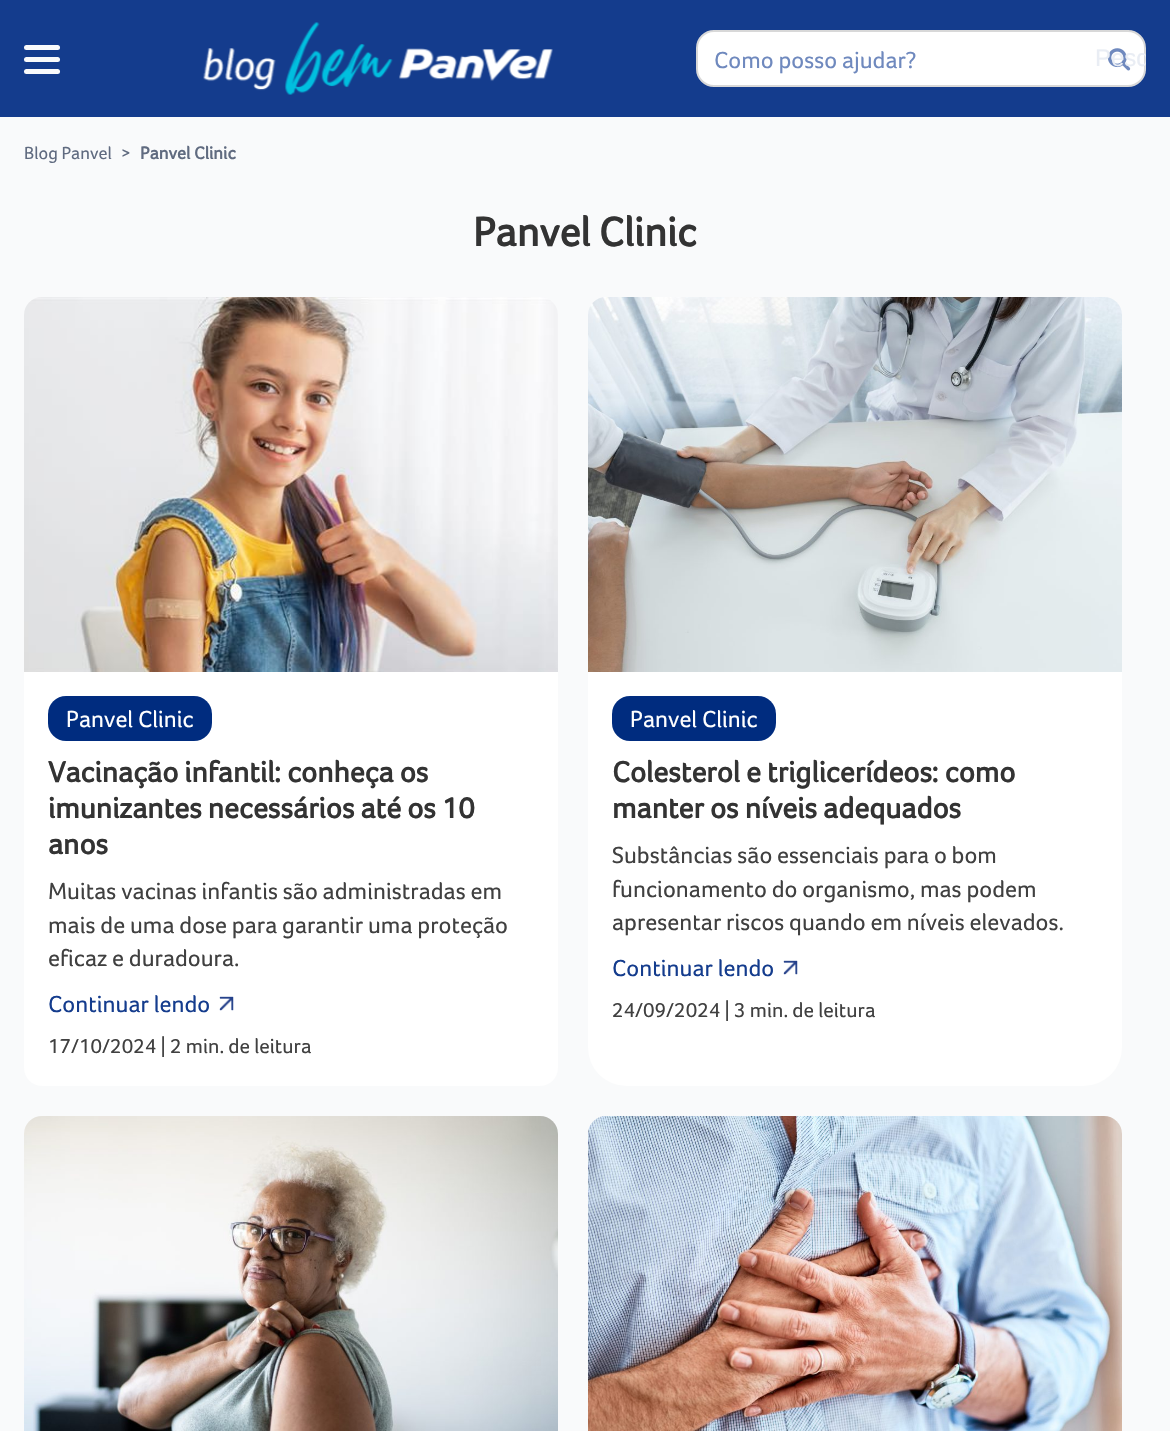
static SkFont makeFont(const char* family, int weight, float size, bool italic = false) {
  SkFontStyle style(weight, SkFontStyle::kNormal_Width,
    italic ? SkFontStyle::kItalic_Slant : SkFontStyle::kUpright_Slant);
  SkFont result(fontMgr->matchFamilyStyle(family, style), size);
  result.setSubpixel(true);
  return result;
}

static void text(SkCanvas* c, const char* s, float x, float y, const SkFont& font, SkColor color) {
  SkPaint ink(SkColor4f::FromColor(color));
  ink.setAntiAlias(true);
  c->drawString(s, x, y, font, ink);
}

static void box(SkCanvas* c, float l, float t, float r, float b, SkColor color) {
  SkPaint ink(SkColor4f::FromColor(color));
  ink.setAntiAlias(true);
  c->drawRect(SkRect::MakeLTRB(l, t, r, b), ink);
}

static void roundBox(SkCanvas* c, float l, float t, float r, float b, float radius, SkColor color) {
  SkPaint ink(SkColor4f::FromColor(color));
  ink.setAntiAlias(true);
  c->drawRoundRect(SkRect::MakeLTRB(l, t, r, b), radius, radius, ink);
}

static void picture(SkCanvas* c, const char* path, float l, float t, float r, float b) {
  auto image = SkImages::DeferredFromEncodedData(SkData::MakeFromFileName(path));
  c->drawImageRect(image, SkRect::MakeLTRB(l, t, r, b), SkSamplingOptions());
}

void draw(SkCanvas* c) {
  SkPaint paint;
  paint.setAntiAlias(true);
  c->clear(0xfff9fafb);
  box(c, 0, 0, 1170, 117, 0xff143c8d);
  roundBox(c, 24, 45, 60, 50, 2.5f, 0xfff9fafb);
  roundBox(c, 24, 57, 60, 62, 2.5f, 0xfff9fafb);
  roundBox(c, 24, 69, 60, 74, 2.5f, 0xfff9fafb);
  picture(c, "img_01.png", 203, 22, 553, 95);
  paint.setColor(0xffffffff);
  c->drawRoundRect(SkRect::MakeLTRB(697, 31, 1145, 86), 17, 17, paint);
  paint.setStyle(SkPaint::kStroke_Style);
  paint.setStrokeWidth(2);
  paint.setColor(0xffd8d8d8);
  c->drawRoundRect(SkRect::MakeLTRB(697, 31, 1145, 86), 17, 17, paint);
  picture(c, "img_02.png", 1107, 48, 1131, 71);
  SkFont face1 = makeFont("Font", 400, 24);
  text(c, "Como posso ajudar?", 714, 68, face1, 0xff6f89be);
  c->save();
  c->clipRect(SkRect::MakeLTRB(1095, 29, 1146, 89));
  SkFont face2 = makeFont("Liberation Sans", 400, 24);
  text(c, "Pesq", 1095, 66, face2, 0xffe9edf4);
  c->restore();
  SkFont face3 = makeFont("Font", 400, 18);
  text(c, "Blog Panvel", 24, 159, face3, 0xff606b80);
  text(c, ">", 121, 159, face3, 0xff606b80);
  SkFont face4 = makeFont("Font", 700, 18);
  text(c, "Panvel Clinic", 140, 159, face4, 0xff606b80);
  SkFont face5 = makeFont("Font", 700, 42);
  text(c, "Panvel Clinic", 473, 246, face5, 0xff333333);
  picture(c, "img_03.png", 24, 297, 558, 672);
  paint.setStyle(SkPaint::kFill_Style);
  paint.setColor(0xffffffff);
  c->drawPath(SkPathBuilder().moveTo(24, 672).lineTo(558, 672).lineTo(558, 1068).cubicTo(558, 1078, 550, 1086, 540, 1086).lineTo(42, 1086).cubicTo(32, 1086, 24, 1078, 24, 1068).close().detach(), paint);
  roundBox(c, 48, 696, 212, 741, 18, 0xff002c7f);
  text(c, "Panvel Clinic", 66, 727, face1, 0xffffffff);
  SkFont face6 = makeFont("Font", 700, 30);
  text(c, "Vacinação infantil: conheça os", 48, 782, face6, 0xff333333);
  text(c, "imunizantes necessários até os 10", 48, 818, face6, 0xff333333);
  text(c, "anos", 48, 854, face6, 0xff333333);
  text(c, "Muitas vacinas infantis são administradas em", 48, 899, face1, 0xff404040);
  text(c, "mais de uma dose para garantir uma proteção", 48, 933, face1, 0xff404040);
  text(c, "eficaz e duradoura.", 48, 966, face1, 0xff404040);
  text(c, "Continuar lendo", 48, 1012, face1, 0xff143c8d);
  picture(c, "img_04.png", 219, 996, 234, 1011);
  SkFont face7 = makeFont("Font", 400, 21);
  text(c, "17/10/2024 | 2 min. de leitura", 48, 1053, face7, 0xff404040);
  roundBox(c, 588, 297, 1122, 1086, 38, 0xffffffff);
  picture(c, "img_05.png", 588, 297, 1122, 672);
  roundBox(c, 612, 696, 776, 741, 18, 0xff002c7f);
  text(c, "Panvel Clinic", 630, 727, face1, 0xffffffff);
  text(c, "Colesterol e triglicerídeos: como", 612, 782, face6, 0xff333333);
  text(c, "manter os níveis adequados", 612, 818, face6, 0xff333333);
  text(c, "Substâncias são essenciais para o bom", 612, 863, face1, 0xff404040);
  text(c, "funcionamento do organismo, mas podem", 612, 897, face1, 0xff404040);
  text(c, "apresentar riscos quando em níveis elevados.", 612, 930, face1, 0xff404040);
  text(c, "Continuar lendo", 612, 976, face1, 0xff143c8d);
  picture(c, "img_06.png", 783, 960, 798, 975);
  text(c, "24/09/2024 | 3 min. de leitura", 612, 1017, face7, 0xff404040);
  picture(c, "img_07.png", 24, 1116, 558, 1431);
  picture(c, "img_08.png", 588, 1116, 1122, 1431);
}
